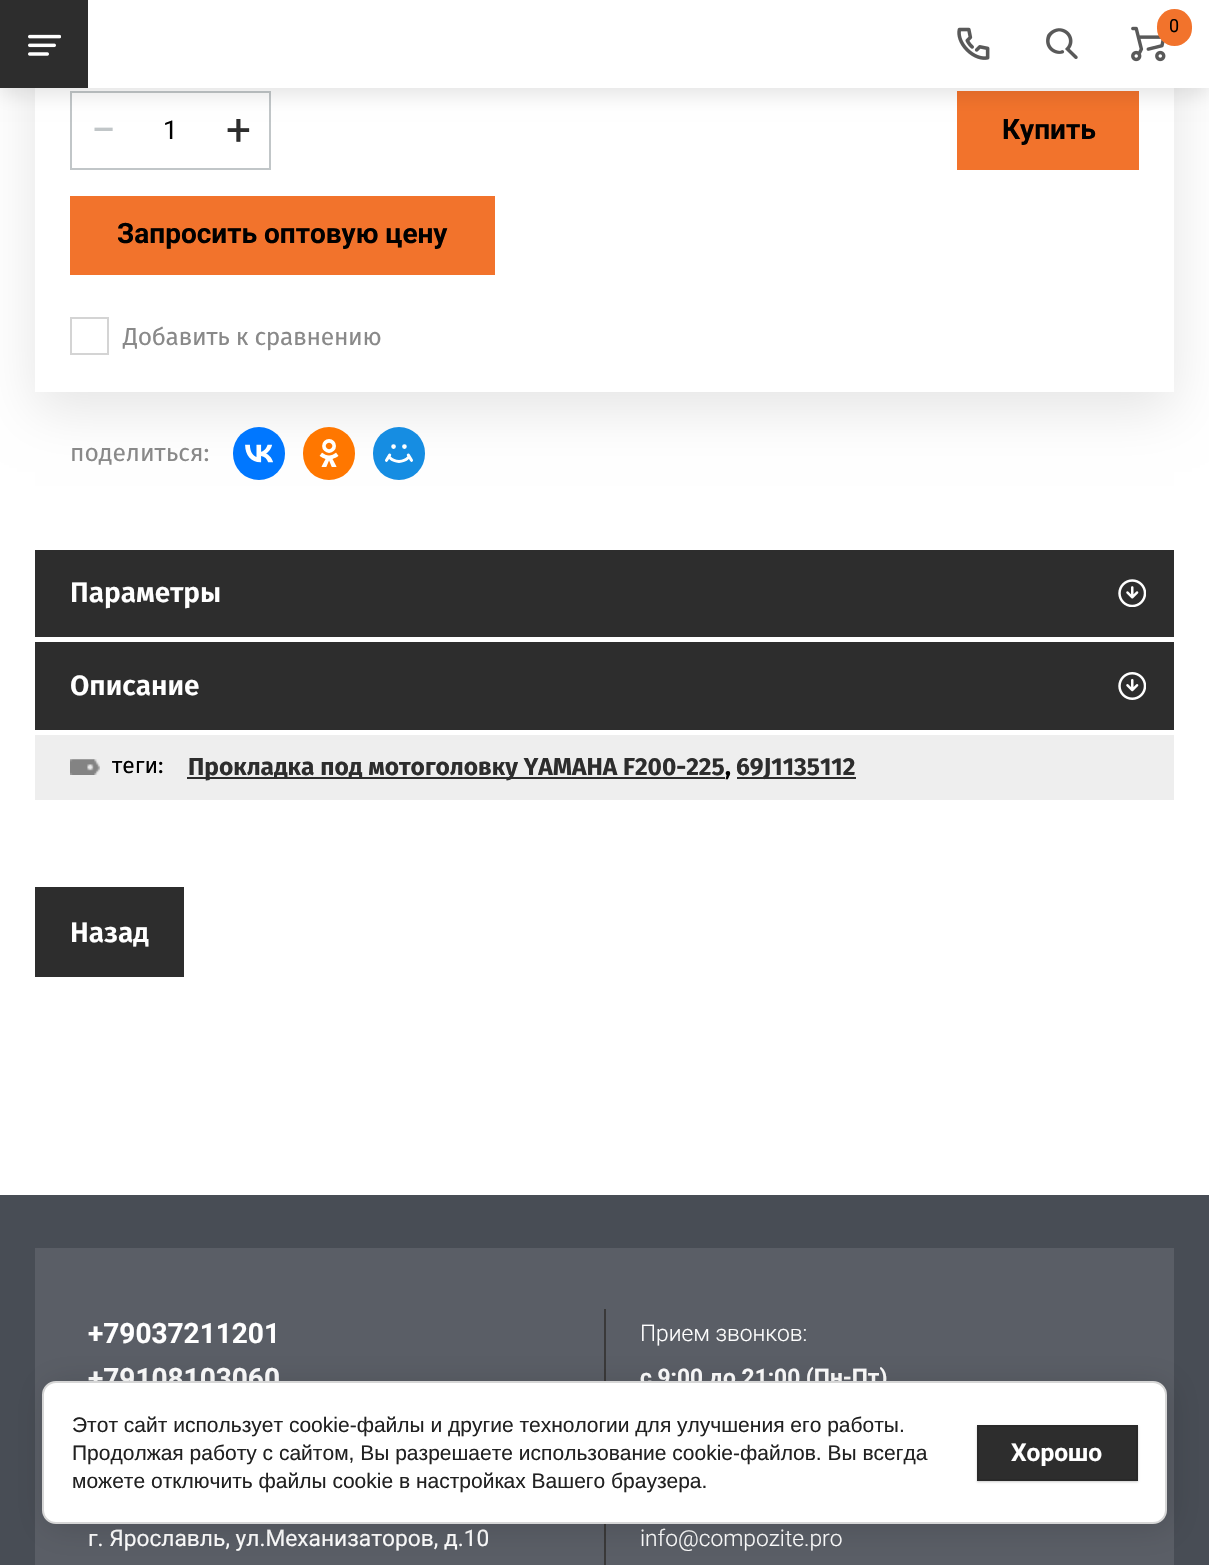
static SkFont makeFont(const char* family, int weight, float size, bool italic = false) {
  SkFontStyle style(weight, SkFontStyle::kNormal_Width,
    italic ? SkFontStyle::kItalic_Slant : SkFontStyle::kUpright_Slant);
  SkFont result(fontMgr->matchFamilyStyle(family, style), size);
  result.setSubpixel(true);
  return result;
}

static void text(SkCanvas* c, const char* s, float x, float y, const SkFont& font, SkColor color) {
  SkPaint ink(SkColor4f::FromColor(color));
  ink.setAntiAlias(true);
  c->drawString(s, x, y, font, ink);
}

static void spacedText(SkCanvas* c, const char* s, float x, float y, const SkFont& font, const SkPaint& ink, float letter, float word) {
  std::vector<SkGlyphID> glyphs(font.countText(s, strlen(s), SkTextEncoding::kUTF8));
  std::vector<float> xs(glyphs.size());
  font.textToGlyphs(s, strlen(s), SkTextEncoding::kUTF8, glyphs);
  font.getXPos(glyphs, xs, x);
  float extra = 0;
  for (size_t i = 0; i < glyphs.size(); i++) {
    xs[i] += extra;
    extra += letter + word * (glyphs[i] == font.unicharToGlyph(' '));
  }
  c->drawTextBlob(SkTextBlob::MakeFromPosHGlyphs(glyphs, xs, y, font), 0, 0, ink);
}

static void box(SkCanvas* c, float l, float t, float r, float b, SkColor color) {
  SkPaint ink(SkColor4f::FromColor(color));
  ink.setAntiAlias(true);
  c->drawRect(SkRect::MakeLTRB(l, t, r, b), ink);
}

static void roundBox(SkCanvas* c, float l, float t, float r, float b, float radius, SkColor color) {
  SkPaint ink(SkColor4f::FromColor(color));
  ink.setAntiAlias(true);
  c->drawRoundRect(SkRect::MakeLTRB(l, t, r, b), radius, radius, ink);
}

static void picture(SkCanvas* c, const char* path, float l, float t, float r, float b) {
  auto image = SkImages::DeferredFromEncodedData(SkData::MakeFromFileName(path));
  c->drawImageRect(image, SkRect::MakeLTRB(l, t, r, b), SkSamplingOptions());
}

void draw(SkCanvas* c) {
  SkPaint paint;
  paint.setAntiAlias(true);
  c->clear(0xffffffff);
  c->save();
  c->clipPath(SkPathBuilder(SkPathFillType::kEvenOdd).moveTo(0, 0).lineTo(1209, 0).lineTo(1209, 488).lineTo(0, 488).close().moveTo(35, -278).lineTo(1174, -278).lineTo(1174, 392).lineTo(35, 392).close().detach(), true);
  paint.setColor(0x1a000000);
  paint.setMaskFilter(SkMaskFilter::MakeBlur(kNormal_SkBlurStyle, 25.5f));
  c->drawRect(SkRect::MakeLTRB(35, -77, 1174, 410), paint);
  paint.setMaskFilter(nullptr);
  c->restore();
  paint.setStyle(SkPaint::kStroke_Style);
  paint.setStrokeWidth(2);
  paint.setColor(0xffc1c6c8);
  c->drawRect(SkRect::MakeLTRB(71, 92, 270, 169), paint);
  box(c, 957, 91, 1139, 170, 0xfff2732c);
  paint.setStyle(SkPaint::kFill_Style);
  paint.setColor(0x1a000000);
  paint.setMaskFilter(SkMaskFilter::MakeBlur(kNormal_SkBlurStyle, 9));
  c->drawRect(SkRect::MakeLTRB(0, 7, 1209, 95), paint);
  paint.setMaskFilter(nullptr);
  box(c, 88, 0, 1209, 88, 0xffffffff);
  box(c, 0, 0, 88, 88, 0xff2d2d2d);
  picture(c, "img_01.png", 28, 34, 61, 56);
  picture(c, "img_02.png", 957, 27, 990, 60);
  picture(c, "img_03.png", 1046, 28, 1078, 59);
  picture(c, "img_04.png", 1131, 26, 1166, 62);
  roundBox(c, 1157, 9, 1192, 46, 17.5f, 0xfff2732c);
  SkFont face1 = makeFont("Roboto", 400, 18);
  text(c, "0", 1169, 32, face1, 0xff000000);
  SkFont face2 = makeFont("Roboto", 400, 44);
  text(c, "−", 91, 145, face2, 0xffc1c6c8);
  SkFont face3 = makeFont("Roboto", 400, 26);
  text(c, "1", 163, 139, face3, 0xff000000);
  text(c, "+", 226, 145, face2, 0xff2d2d2d);
  SkFont face4 = makeFont("Roboto", 700, 28);
  text(c, "Купить", 1002, 139, face4, 0xff000000);
  box(c, 70, 196, 495, 275, 0xfff2732c);
  text(c, "Запросить оптовую цену", 117, 243, face4, 0xff000000);
  paint.setStyle(SkPaint::kStroke_Style);
  paint.setColor(0xffd4d4d4);
  c->drawRect(SkRect::MakeLTRB(71, 318, 108, 354), paint);
  SkFont face5 = makeFont("Fira Sans", 400, 24.5f);
  paint.setStyle(SkPaint::kFill_Style);
  paint.setColor(0xff898989);
  spacedText(c, "Добавить к сравнению", 123, 345, face5, paint, -0.3f, 0);
  text(c, "поделиться:", 70, 461, face5, 0xff898989);
  roundBox(c, 233, 427, 285, 480, 26, 0xff0077ff);
  picture(c, "img_05.png", 245, 444, 273, 463);
  roundBox(c, 303, 427, 355, 480, 26, 0xffff7700);
  picture(c, "img_06.png", 319, 439, 339, 467);
  roundBox(c, 373, 427, 425, 480, 26, 0xff168de2);
  picture(c, "img_07.png", 385, 444, 413, 463);
  box(c, 35, 550, 1174, 637, 0xff2d2d2d);
  SkFont face6 = makeFont("Fira Sans", 600, 28);
  text(c, "Параметры", 70, 602, face6, 0xffffffff);
  picture(c, "img_08.png", 1118, 579, 1146, 607);
  box(c, 35, 642, 1174, 730, 0xff2d2d2d);
  text(c, "Описание", 70, 695, face6, 0xffffffff);
  picture(c, "img_09.png", 1118, 672, 1146, 700);
  box(c, 35, 735, 1174, 800, 0xffeeeeee);
  picture(c, "img_10.png", 70, 759, 100, 775);
  SkFont face7 = makeFont("Fira Sans", 400, 22.75f);
  text(c, "теги:", 112, 773, face7, 0xff000000);
  box(c, 187, 777, 725, 779, 0xff2d2d2d);
  SkFont face8 = makeFont("Fira Sans", 700, 24.5f);
  text(c, "Прокладка под мотоголовку YAMAHA F200-225", 188, 775, face8, 0xff2d2d2d);
  text(c, ",", 725, 775, face8, 0xff000000);
  box(c, 737, 777, 856, 779, 0xff2d2d2d);
  text(c, "69J1135112", 736, 775, face8, 0xff2d2d2d);
  box(c, 35, 887, 184, 977, 0xff2d2d2d);
  text(c, "Назад", 70, 942, face6, 0xffffffff);
  box(c, 0, 1195, 1209, 1565, 0xff484d55);
  box(c, 35, 1248, 1174, 1565, 0xff5a5e66);
  text(c, "+79037211201", 88, 1343, face4, 0xffffffff);
  text(c, "+79108103060", 88, 1388, face4, 0xffffffff);
  box(c, 604, 1309, 606, 1565, 0xff3a3939);
  SkFont face9 = makeFont("Roboto", 300, 22.75f);
  text(c, "Прием звонков:", 640, 1341, face9, 0xffffffff);
  SkFont face10 = makeFont("Roboto", 700, 22.75f);
  text(c, "с 9:00 до 21:00 (Пн-Пт)", 640, 1385, face10, 0xffffffff);
  SkFont face11 = makeFont("Roboto", 400, 22.75f);
  text(c, "г. Ярославль, ул.Механизаторов, д.10", 88, 1546, face11, 0xffffffff);
  text(c, "info@compozite.pro", 640, 1546, face9, 0xffffffff);
  paint.setColor(0x24000000);
  paint.setMaskFilter(SkMaskFilter::MakeBlur(kNormal_SkBlurStyle, 16));
  c->drawRoundRect(SkRect::MakeLTRB(46, 1384, 1171, 1528), 14, 14, paint);
  paint.setMaskFilter(nullptr);
  paint.setColor(0xffffffff);
  c->drawRoundRect(SkRect::MakeLTRB(43, 1382, 1166, 1523), 13, 13, paint);
  paint.setStyle(SkPaint::kStroke_Style);
  paint.setColor(0xffd6d6d6);
  c->drawRoundRect(SkRect::MakeLTRB(43, 1382, 1166, 1523), 13, 13, paint);
  SkFont face12 = makeFont("Liberation Sans", 400, 21);
  text(c, "Этот сайт использует cookie-файлы и другие технологии для улучшения его работы.", 72, 1432, face12, 0xff212121);
  text(c, "Продолжая работу с сайтом, Вы разрешаете использование cookie-файлов. Вы всегда", 72, 1460, face12, 0xff212121);
  text(c, "можете отключить файлы cookie в настройках Вашего браузера.", 72, 1488, face12, 0xff212121);
  paint.setStyle(SkPaint::kFill_Style);
  paint.setColor(0x33000000);
  paint.setMaskFilter(SkMaskFilter::MakeBlur(kNormal_SkBlurStyle, 1));
  c->drawRect(SkRect::MakeLTRB(977, 1426, 1138, 1482), paint);
  paint.setMaskFilter(nullptr);
  paint.setColor(0xff2d2d2d);
  c->drawRect(SkRect::MakeLTRB(978, 1426, 1137, 1480), paint);
  paint.setStyle(SkPaint::kStroke_Style);
  paint.setColor(0xff292929);
  c->drawRect(SkRect::MakeLTRB(978, 1426, 1137, 1480), paint);
  SkFont face13 = makeFont("Roboto", 700, 24.5f);
  text(c, "Хорошо", 1011, 1461, face13, 0xffffffff);
}
